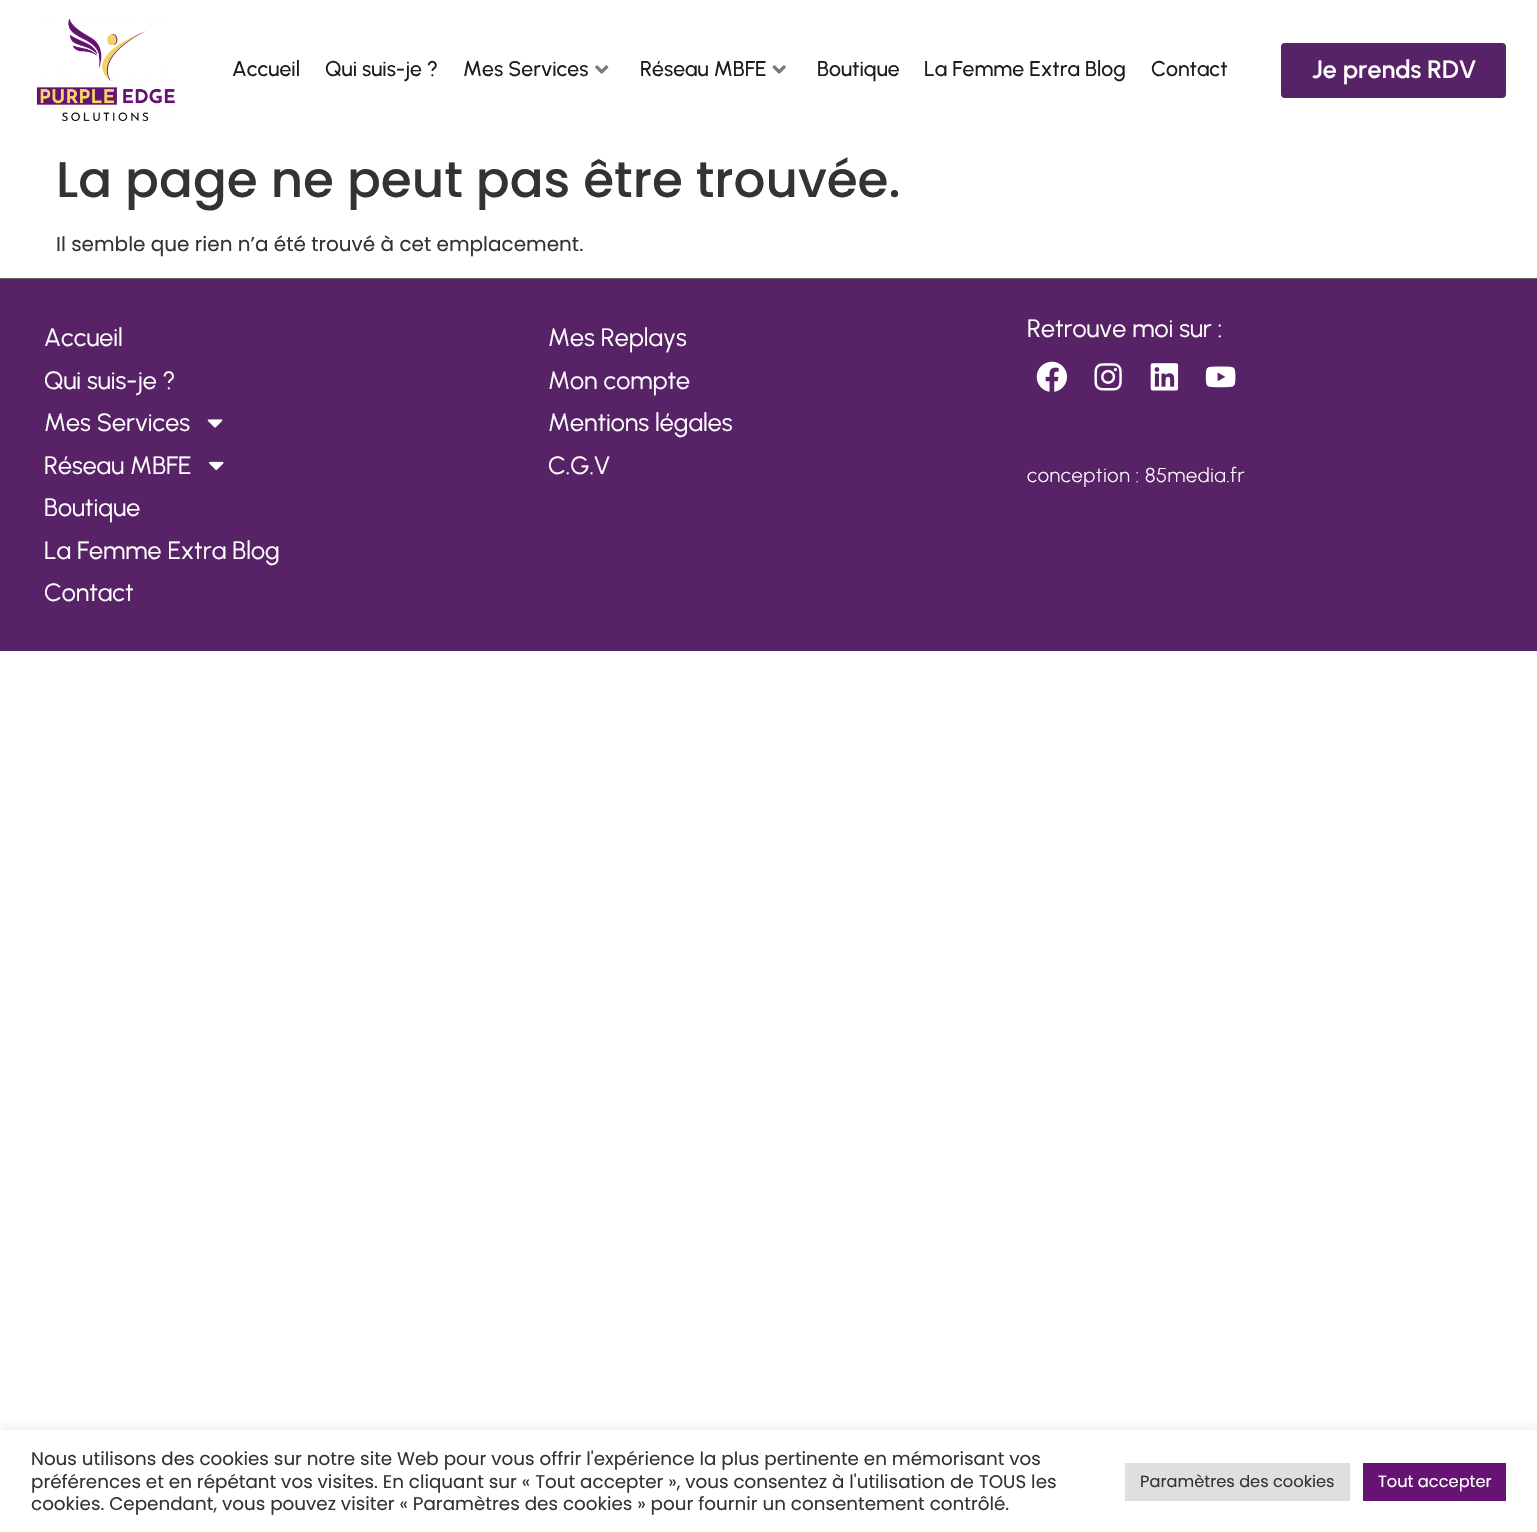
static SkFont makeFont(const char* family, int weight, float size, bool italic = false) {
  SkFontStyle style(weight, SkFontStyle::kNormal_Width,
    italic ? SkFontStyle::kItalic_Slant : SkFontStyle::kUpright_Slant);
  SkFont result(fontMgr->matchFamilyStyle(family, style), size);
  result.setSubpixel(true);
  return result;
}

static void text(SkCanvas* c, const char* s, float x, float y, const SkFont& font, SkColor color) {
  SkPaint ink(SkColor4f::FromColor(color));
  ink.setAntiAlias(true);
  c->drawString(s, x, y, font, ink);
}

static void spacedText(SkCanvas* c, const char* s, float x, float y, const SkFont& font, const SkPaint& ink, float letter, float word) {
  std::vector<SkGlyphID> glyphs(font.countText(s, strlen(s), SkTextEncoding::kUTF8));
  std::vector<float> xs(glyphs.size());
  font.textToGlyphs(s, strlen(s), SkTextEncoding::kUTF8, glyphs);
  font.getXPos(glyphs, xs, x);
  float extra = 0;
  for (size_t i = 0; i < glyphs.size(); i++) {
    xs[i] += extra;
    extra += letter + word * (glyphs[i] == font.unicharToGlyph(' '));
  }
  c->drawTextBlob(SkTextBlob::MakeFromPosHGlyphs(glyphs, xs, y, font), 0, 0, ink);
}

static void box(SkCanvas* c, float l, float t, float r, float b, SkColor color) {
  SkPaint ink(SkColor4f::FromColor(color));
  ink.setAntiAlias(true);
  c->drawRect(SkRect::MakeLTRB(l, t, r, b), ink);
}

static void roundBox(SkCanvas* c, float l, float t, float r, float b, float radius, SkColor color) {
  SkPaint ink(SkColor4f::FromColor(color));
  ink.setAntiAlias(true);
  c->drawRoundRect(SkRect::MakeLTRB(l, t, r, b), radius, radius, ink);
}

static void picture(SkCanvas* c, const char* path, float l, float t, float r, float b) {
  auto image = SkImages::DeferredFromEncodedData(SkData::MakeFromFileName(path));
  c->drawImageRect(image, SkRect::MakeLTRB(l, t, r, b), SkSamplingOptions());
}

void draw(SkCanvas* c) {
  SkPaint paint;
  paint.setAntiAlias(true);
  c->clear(0xffffffff);
  picture(c, "img_01.png", 36, 18, 175, 121);
  SkFont face1 = makeFont("Urbanist", 500, 21.25f);
  text(c, "Accueil", 232, 76, face1, 0xff1d1d1d);
  text(c, "Qui suis-je ?", 325, 76, face1, 0xff1d1d1d);
  text(c, "Mes Services", 463, 76, face1, 0xff1d1d1d);
  picture(c, "img_02.png", 595, 65, 609, 74);
  text(c, "Réseau MBFE", 640, 76, face1, 0xff1d1d1d);
  picture(c, "img_03.png", 772, 65, 786, 74);
  text(c, "Boutique", 817, 76, face1, 0xff1d1d1d);
  text(c, "La Femme Extra Blog", 924, 76, face1, 0xff1d1d1d);
  text(c, "Contact", 1151, 76, face1, 0xff1d1d1d);
  roundBox(c, 1281, 43, 1506, 98, 4, 0xff572266);
  SkFont face2 = makeFont("Urbanist", 600, 25);
  text(c, "Je prends RDV", 1312, 78, face2, 0xffffffff);
  SkFont face3 = makeFont("Poppins", 500, 50);
  text(c, "La page ne peut pas être trouvée.", 56, 197, face3, 0xff333333);
  SkFont face4 = makeFont("Poppins", 400, 20);
  text(c, "Il semble que rien n’a été trouvé à cet emplacement.", 56, 251, face4, 0xff333333);
  box(c, 0, 279, 1537, 651, 0xff572266);
  box(c, 0, 278, 1537, 279, 0xff656465);
  SkFont face5 = makeFont("Urbanist", 400, 25);
  text(c, "Accueil", 44, 346, face5, 0xffffffff);
  text(c, "Qui suis-je ?", 44, 389, face5, 0xffffffff);
  text(c, "Mes Services", 44, 431, face5, 0xffffffff);
  picture(c, "img_04.png", 207, 419, 223, 428);
  text(c, "Réseau MBFE", 44, 474, face5, 0xffffffff);
  picture(c, "img_05.png", 209, 461, 224, 471);
  text(c, "Boutique", 44, 516, face5, 0xffffffff);
  text(c, "La Femme Extra Blog", 44, 559, face5, 0xffffffff);
  text(c, "Contact", 44, 601, face5, 0xffffffff);
  text(c, "Mes Replays", 548, 346, face5, 0xffffffff);
  text(c, "Mon compte", 548, 389, face5, 0xffffffff);
  text(c, "Mentions légales", 548, 431, face5, 0xffffffff);
  text(c, "C.G.V", 548, 474, face5, 0xffffffff);
  text(c, "Retrouve moi sur :", 1027, 337, face5, 0xffffffff);
  picture(c, "img_06.png", 1036, 361, 1067, 392);
  picture(c, "img_07.png", 1094, 363, 1122, 391);
  picture(c, "img_08.png", 1150, 363, 1179, 391);
  picture(c, "img_09.png", 1205, 366, 1236, 388);
  SkFont face6 = makeFont("Urbanist", 300, 20);
  paint.setColor(0xffffffff);
  spacedText(c, "conception : 85media.fr", 1027, 482, face6, paint, 0.6f, 0);
  c->save();
  c->clipRect(SkRect::MakeLTRB(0, 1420, 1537, 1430));
  paint.setColor(0x4dacabab);
  paint.setMaskFilter(SkMaskFilter::MakeBlur(kNormal_SkBlurStyle, 6));
  c->drawRect(SkRect::MakeLTRB(0, 1429, 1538, 1531), paint);
  paint.setMaskFilter(nullptr);
  c->restore();
  SkFont face7 = makeFont("Poppins", 400, 18.33f);
  text(c, "Nous utilisons des cookies sur notre site Web pour vous offrir l'expérience la plus pertinente en mémorisant vos", 31, 1465, face7, 0xff333333);
  text(c, "préférences et en répétant vos visites. En cliquant sur « Tout accepter », vous consentez à l'utilisation de TOUS les", 31, 1488, face7, 0xff333333);
  text(c, "cookies. Cependant, vous pouvez visiter « Paramètres des cookies » pour fournir un consentement contrôlé.", 31, 1510, face7, 0xff333333);
  box(c, 1125, 1463, 1350, 1501, 0xffdedfe0);
  SkFont face8 = makeFont("Poppins", 400, 16.25f);
  text(c, "Paramètres des cookies", 1140, 1487, face8, 0xff333333);
  box(c, 1363, 1463, 1506, 1501, 0xff661374);
  text(c, "Tout accepter", 1378, 1487, face8, 0xffffffff);
}
